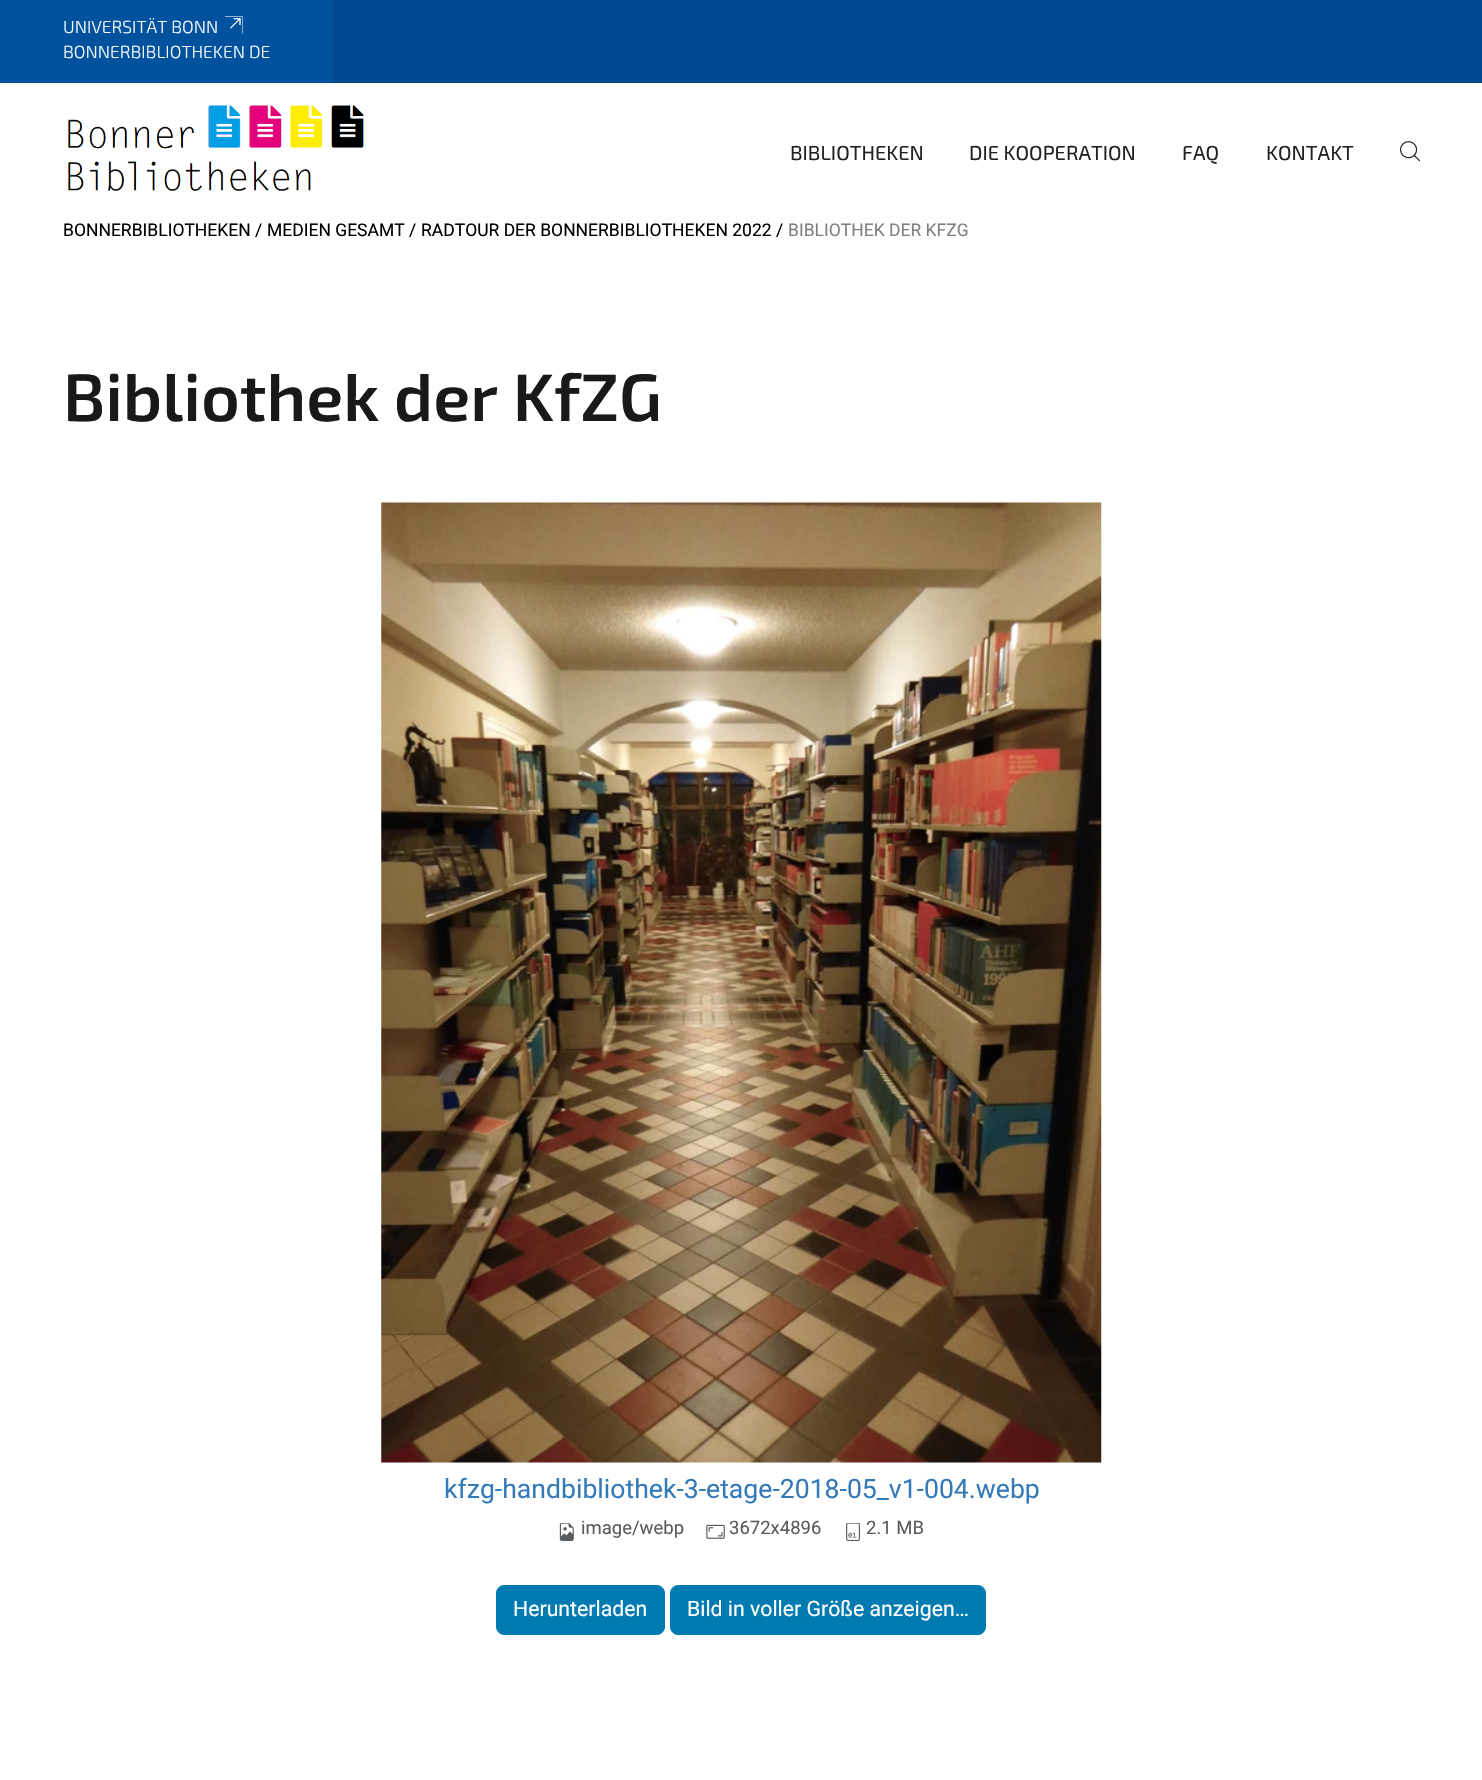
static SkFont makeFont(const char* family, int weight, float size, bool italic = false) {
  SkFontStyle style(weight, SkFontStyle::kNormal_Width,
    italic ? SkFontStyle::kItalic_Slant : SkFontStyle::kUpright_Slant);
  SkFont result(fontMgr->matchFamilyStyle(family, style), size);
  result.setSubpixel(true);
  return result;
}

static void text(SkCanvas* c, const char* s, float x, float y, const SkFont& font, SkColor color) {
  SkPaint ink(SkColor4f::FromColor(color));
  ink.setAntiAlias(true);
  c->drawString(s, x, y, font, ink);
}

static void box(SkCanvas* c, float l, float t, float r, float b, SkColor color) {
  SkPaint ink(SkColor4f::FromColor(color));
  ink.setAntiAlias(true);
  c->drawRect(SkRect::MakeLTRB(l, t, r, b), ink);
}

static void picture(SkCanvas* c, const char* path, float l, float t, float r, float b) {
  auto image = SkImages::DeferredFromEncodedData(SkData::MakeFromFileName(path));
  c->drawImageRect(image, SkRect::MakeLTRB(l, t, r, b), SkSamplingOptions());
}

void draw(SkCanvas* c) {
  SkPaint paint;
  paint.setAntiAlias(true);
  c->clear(0xffffffff);
  box(c, 333, 0, 1482, 83, 0xff00498f);
  box(c, 0, 0, 333, 83, 0xff00529f);
  SkFont face1 = makeFont("Exo 2", 300, 17.5f);
  text(c, "UNIVERSITÄT BONN", 63, 33, face1, 0xfff6f7f9);
  picture(c, "img_01.png", 225, 16, 243, 34);
  text(c, "BONNERBIBLIOTHEKEN DE", 63, 58, face1, 0xfff6f7f9);
  picture(c, "img_02.png", 68, 105, 364, 191);
  SkFont face2 = makeFont("Exo 2", 400, 20.25f);
  text(c, "BIBLIOTHEKEN", 790, 160, face2, 0xff222222);
  text(c, "DIE KOOPERATION", 969, 160, face2, 0xff222222);
  text(c, "FAQ", 1182, 160, face2, 0xff222222);
  text(c, "KONTAKT", 1266, 160, face2, 0xff222222);
  picture(c, "img_03.png", 1400, 141, 1421, 162);
  SkFont face3 = makeFont("Roboto", 400, 17.5f);
  text(c, "BONNERBIBLIOTHEKEN /", 63, 236, face3, 0xff000000);
  text(c, "MEDIEN GESAMT /", 267, 236, face3, 0xff000000);
  text(c, "RADTOUR DER BONNERBIBLIOTHEKEN 2022 /", 421, 236, face3, 0xff000000);
  text(c, "BIBLIOTHEK DER KFZG", 788, 236, face3, 0xff808080);
  SkFont face4 = makeFont("Exo 2", 600, 67);
  text(c, "Bibliothek der KfZG", 63, 421, face4, 0xff1a181b);
  picture(c, "img_04.png", 381, 502, 1102, 1463);
  SkFont face5 = makeFont("Roboto", 400, 26.6f);
  text(c, "kfzg-handbibliothek-3-etage-2018-05_v1-004.webp", 444, 1498, face5, 0xff337ab7);
  picture(c, "img_05.png", 559, 1523, 574, 1541);
  SkFont face6 = makeFont("Roboto", 400, 18.5f);
  text(c, "image/webp", 581, 1534, face6, 0xff595c5f);
  picture(c, "img_06.png", 706, 1524, 725, 1539);
  text(c, "3672x4896", 729, 1534, face6, 0xff595c5f);
  picture(c, "img_07.png", 846, 1523, 860, 1541);
  text(c, "2.1 MB", 866, 1534, face6, 0xff595c5f);
  paint.setColor(0xff007bb1);
  c->drawRoundRect(SkRect::MakeLTRB(496.5f, 1585.5f, 664.5f, 1634.5f), 7.5f, 7.5f, paint);
  paint.setStyle(SkPaint::kStroke_Style);
  paint.setStrokeWidth(1);
  c->drawRoundRect(SkRect::MakeLTRB(496.5f, 1585.5f, 664.5f, 1634.5f), 7.5f, 7.5f, paint);
  SkFont face7 = makeFont("Roboto", 400, 21.25f);
  text(c, "Herunterladen", 513, 1616, face7, 0xffffffff);
  paint.setStyle(SkPaint::kFill_Style);
  c->drawRoundRect(SkRect::MakeLTRB(670.5f, 1585.5f, 985.5f, 1634.5f), 7.5f, 7.5f, paint);
  paint.setStyle(SkPaint::kStroke_Style);
  c->drawRoundRect(SkRect::MakeLTRB(670.5f, 1585.5f, 985.5f, 1634.5f), 7.5f, 7.5f, paint);
  text(c, "Bild in voller Größe anzeigen…", 687, 1616, face7, 0xffffffff);
}
